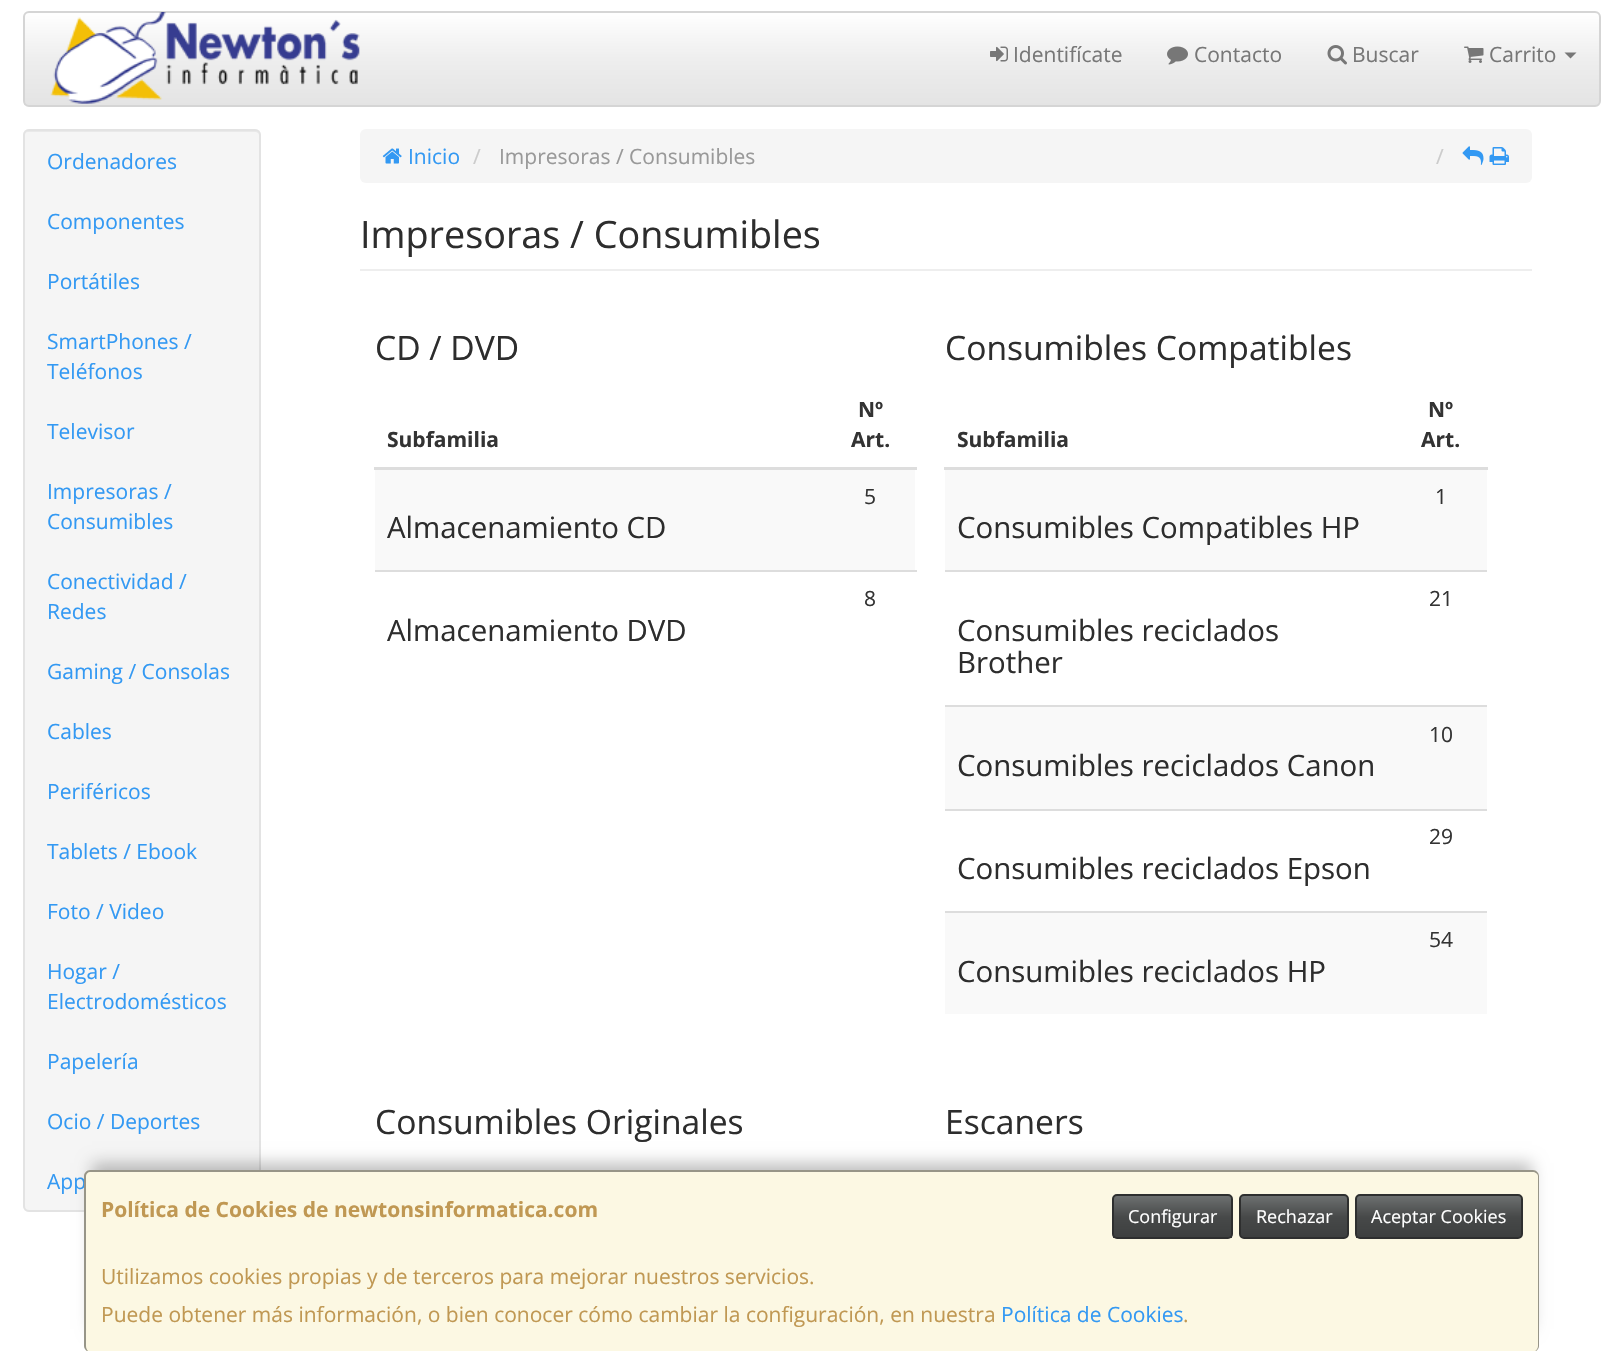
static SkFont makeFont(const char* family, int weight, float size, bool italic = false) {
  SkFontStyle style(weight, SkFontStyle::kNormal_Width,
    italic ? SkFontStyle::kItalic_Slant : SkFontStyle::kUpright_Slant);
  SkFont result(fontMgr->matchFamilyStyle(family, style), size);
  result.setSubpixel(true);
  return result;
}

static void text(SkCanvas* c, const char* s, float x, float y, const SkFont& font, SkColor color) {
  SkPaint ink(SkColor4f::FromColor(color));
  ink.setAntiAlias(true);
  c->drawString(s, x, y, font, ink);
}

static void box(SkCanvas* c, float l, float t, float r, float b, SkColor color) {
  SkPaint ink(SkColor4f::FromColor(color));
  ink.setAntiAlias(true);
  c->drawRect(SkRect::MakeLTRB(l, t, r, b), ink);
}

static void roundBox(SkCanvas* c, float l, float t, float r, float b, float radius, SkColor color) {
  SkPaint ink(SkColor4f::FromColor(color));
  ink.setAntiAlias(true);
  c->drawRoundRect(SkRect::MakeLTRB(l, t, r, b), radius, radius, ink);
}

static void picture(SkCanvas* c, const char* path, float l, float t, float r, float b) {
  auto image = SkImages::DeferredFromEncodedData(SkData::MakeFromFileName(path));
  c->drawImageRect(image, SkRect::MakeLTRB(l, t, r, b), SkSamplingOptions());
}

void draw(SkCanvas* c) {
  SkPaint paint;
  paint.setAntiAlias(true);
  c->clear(0xffffffff);
  c->save();
  c->clipPath(SkPathBuilder().moveTo(29, 11).lineTo(1595, 11).cubicTo(1598.5f, 11, 1601, 13.5f, 1601, 17).lineTo(1601, 101).cubicTo(1601, 104.5f, 1598.5f, 107, 1595, 107).lineTo(29, 107).cubicTo(25.5f, 107, 23, 104.5f, 23, 101).lineTo(23, 17).cubicTo(23, 13.5f, 25.5f, 11, 29, 11).close().detach(), true);
  {
    const SkColor colors[] = {0xffffffff, 0xffeeeeee, 0xffe4e4e4};
    const float stops[] = {0, 0.5f, 1};
    const SkPoint ends[] = {{812, 12}, {812, 105}};
    paint.setShader(SkGradientShader::MakeLinear(ends, colors, stops, 3, SkTileMode::kClamp));
    paint.setAlpha(255);
  }
  c->drawRect(SkRect::MakeLTRB(24, 12, 1599, 105), paint);
  c->restore();
  paint.setStyle(SkPaint::kStroke_Style);
  paint.setStrokeWidth(2);
  paint.setShader(nullptr);
  paint.setColor(0xffd5d5d5);
  c->drawRoundRect(SkRect::MakeLTRB(24, 12, 1600, 106), 5, 5, paint);
  picture(c, "img_01.png", 50, 12, 360, 104);
  picture(c, "img_02.png", 990, 46, 1008, 62);
  SkFont face1 = makeFont("Open Sans", 400, 21);
  text(c, "Identifícate", 1013, 62, face1, 0xff777777);
  picture(c, "img_03.png", 1167, 46, 1188, 65);
  text(c, "Contacto", 1194, 62, face1, 0xff777777);
  picture(c, "img_04.png", 1327, 45, 1347, 65);
  text(c, "Buscar", 1352, 62, face1, 0xff777777);
  picture(c, "img_05.png", 1464, 46, 1484, 63);
  text(c, "Carrito", 1489, 62, face1, 0xff777777);
  paint.setStyle(SkPaint::kFill_Style);
  paint.setColor(0xff777777);
  c->drawPath(SkPathBuilder().moveTo(1564.5f, 52.5f).lineTo(1576.5f, 52.5f).lineTo(1570.5f, 58.5f).close().detach(), paint);
  roundBox(c, 23, 129, 261, 1212, 6, 0xfff5f5f5);
  paint.setColor(0xffe9e9e9);
  c->drawPath(SkPathBuilder().moveTo(28, 132).lineTo(255, 132).cubicTo(257, 132, 260, 134, 260, 136).cubicTo(260, 133, 258, 131, 255, 131).lineTo(29, 131).cubicTo(26, 131, 24, 133, 24, 136).cubicTo(24, 134, 26, 132, 28, 132).close().detach(), paint);
  paint.setStyle(SkPaint::kStroke_Style);
  paint.setColor(0xffe3e3e3);
  c->drawRoundRect(SkRect::MakeLTRB(24, 130, 260, 1211), 5, 5, paint);
  text(c, "Ordenadores", 47, 169, face1, 0xff3399f3);
  text(c, "Componentes", 47, 229, face1, 0xff3399f3);
  text(c, "Portátiles", 47, 289, face1, 0xff3399f3);
  text(c, "SmartPhones /", 47, 349, face1, 0xff3399f3);
  text(c, "Teléfonos", 47, 379, face1, 0xff3399f3);
  text(c, "Televisor", 47, 439, face1, 0xff3399f3);
  text(c, "Impresoras /", 47, 499, face1, 0xff3399f3);
  text(c, "Consumibles", 47, 529, face1, 0xff3399f3);
  text(c, "Conectividad /", 47, 589, face1, 0xff3399f3);
  text(c, "Redes", 47, 619, face1, 0xff3399f3);
  text(c, "Gaming / Consolas", 47, 679, face1, 0xff3399f3);
  text(c, "Cables", 47, 739, face1, 0xff3399f3);
  text(c, "Periféricos", 47, 799, face1, 0xff3399f3);
  text(c, "Tablets / Ebook", 47, 859, face1, 0xff3399f3);
  text(c, "Foto / Video", 47, 919, face1, 0xff3399f3);
  text(c, "Hogar /", 47, 979, face1, 0xff3399f3);
  text(c, "Electrodomésticos", 47, 1009, face1, 0xff3399f3);
  text(c, "Papelería", 47, 1069, face1, 0xff3399f3);
  text(c, "Ocio / Deportes", 47, 1129, face1, 0xff3399f3);
  text(c, "App", 47, 1189, face1, 0xff3399f3);
  roundBox(c, 360, 129, 1532, 183, 6, 0xfff5f5f5);
  picture(c, "img_06.png", 382, 148, 402, 164);
  text(c, "Inicio", 408, 164, face1, 0xff3399f3);
  text(c, "/", 473, 164, face1, 0xffcccccc);
  text(c, "Impresoras / Consumibles", 499, 164, face1, 0xff999999);
  text(c, "/", 1436, 164, face1, 0xffcccccc);
  picture(c, "img_07.png", 1462, 146, 1484, 165);
  picture(c, "img_08.png", 1489, 147, 1509, 165);
  box(c, 360, 269, 1532, 271, 0xffeeeeee);
  SkFont face2 = makeFont("Open Sans", 400, 37.75f);
  text(c, "Impresoras / Consumibles", 360, 248, face2, 0xff2d2d2d);
  SkFont face3 = makeFont("Open Sans", 400, 33.6f);
  text(c, "CD / DVD", 375, 360, face3, 0xff2d2d2d);
  SkFont face4 = makeFont("Open Sans", 700, 21);
  text(c, "Subfamilia", 387, 447, face4, 0xff333333);
  box(c, 374, 467, 917, 470, 0xffdddddd);
  text(c, "Nº", 858, 417, face4, 0xff333333);
  text(c, "Art.", 851, 447, face4, 0xff333333);
  box(c, 375, 470, 915, 570, 0xfff9f9f9);
  text(c, "5", 864, 504, face1, 0xff333333);
  SkFont face5 = makeFont("Open Sans", 400, 29.4f);
  text(c, "Almacenamiento CD", 387, 538, face5, 0xff2d2d2d);
  box(c, 375, 570, 917, 572, 0xffdddddd);
  text(c, "8", 864, 606, face1, 0xff333333);
  text(c, "Almacenamiento DVD", 387, 641, face5, 0xff2d2d2d);
  text(c, "Consumibles Compatibles", 945, 360, face3, 0xff2d2d2d);
  text(c, "Subfamilia", 957, 447, face4, 0xff333333);
  box(c, 944, 467, 1488, 470, 0xffdddddd);
  text(c, "Nº", 1428, 417, face4, 0xff333333);
  text(c, "Art.", 1421, 447, face4, 0xff333333);
  box(c, 945, 470, 1487, 570, 0xfff9f9f9);
  text(c, "1", 1435, 504, face1, 0xff333333);
  text(c, "Consumibles Compatibles HP", 957, 538, face5, 0xff2d2d2d);
  box(c, 945, 570, 1487, 572, 0xffdddddd);
  text(c, "21", 1429, 606, face1, 0xff333333);
  text(c, "Consumibles reciclados", 957, 641, face5, 0xff2d2d2d);
  text(c, "Brother", 957, 673, face5, 0xff2d2d2d);
  box(c, 945, 707, 1487, 809, 0xfff9f9f9);
  box(c, 945, 705, 1487, 707, 0xffdddddd);
  text(c, "10", 1429, 742, face1, 0xff333333);
  text(c, "Consumibles reciclados Canon", 957, 776, face5, 0xff2d2d2d);
  box(c, 945, 809, 1487, 811, 0xffdddddd);
  text(c, "29", 1429, 844, face1, 0xff333333);
  text(c, "Consumibles reciclados Epson", 957, 879, face5, 0xff2d2d2d);
  box(c, 945, 913, 1487, 1014, 0xfff9f9f9);
  box(c, 945, 911, 1487, 913, 0xffdddddd);
  text(c, "54", 1429, 947, face1, 0xff333333);
  text(c, "Consumibles reciclados HP", 957, 982, face5, 0xff2d2d2d);
  text(c, "Consumibles Originales", 375, 1134, face3, 0xff2d2d2d);
  text(c, "Escaners", 945, 1134, face3, 0xff2d2d2d);
  paint.setStyle(SkPaint::kFill_Style);
  paint.setColor(0x40000000);
  paint.setMaskFilter(SkMaskFilter::MakeBlur(kNormal_SkBlurStyle, 7.5f));
  c->drawRect(SkRect::MakeLTRB(92, 1163, 1532, 1329), paint);
  paint.setMaskFilter(nullptr);
  roundBox(c, 84, 1170, 1539, 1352, 6, 0xfffcf8e3);
  paint.setColor(0x66000000);
  c->drawPath(SkPathBuilder(SkPathFillType::kEvenOdd).moveTo(90, 1170).lineTo(1533, 1170).cubicTo(1536, 1170, 1539, 1173, 1539, 1176).lineTo(1539, 1346).cubicTo(1539, 1349, 1536, 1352, 1533, 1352).lineTo(90, 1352).cubicTo(87, 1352, 84, 1349, 84, 1346).lineTo(84, 1176).cubicTo(84, 1173, 87, 1170, 90, 1170).close().moveTo(90, 1172).lineTo(1533, 1172).cubicTo(1535, 1172, 1538, 1174, 1538, 1176).lineTo(1538, 1346).cubicTo(1538, 1349, 1535, 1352, 1533, 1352).lineTo(90, 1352).cubicTo(88, 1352, 86, 1349, 86, 1346).lineTo(86, 1176).cubicTo(86, 1174, 88, 1172, 90, 1172).close().detach(), paint);
  text(c, "Política de Cookies de newtonsinformatica.com", 101, 1217, face4, 0xffc09853);
  {
    const SkColor colors[] = {0xff6d7070, 0xff474949, 0xff3d3f3f};
    const float stops[] = {0, 0.5f, 1};
    const SkPoint ends[] = {{1172, 1196}, {1172, 1238}};
    paint.setShader(SkGradientShader::MakeLinear(ends, colors, stops, 3, SkTileMode::kClamp));
    paint.setAlpha(255);
  }
  c->drawRect(SkRect::MakeLTRB(1113, 1196, 1232, 1238), paint);
  paint.setStyle(SkPaint::kStroke_Style);
  paint.setShader(nullptr);
  paint.setColor(0xff2e2f2f);
  c->drawRoundRect(SkRect::MakeLTRB(1113, 1195, 1232, 1238), 4, 4, paint);
  SkFont face6 = makeFont("Open Sans", 400, 18);
  text(c, "Configurar", 1128, 1223, face6, 0xffffffff);
  paint.setStyle(SkPaint::kFill_Style);
  {
    const SkColor colors[] = {0xff6d7070, 0xff474949, 0xff3d3f3f};
    const float stops[] = {0, 0.5f, 1};
    const SkPoint ends[] = {{1294, 1196}, {1294, 1238}};
    paint.setShader(SkGradientShader::MakeLinear(ends, colors, stops, 3, SkTileMode::kClamp));
    paint.setAlpha(255);
  }
  c->drawRect(SkRect::MakeLTRB(1241, 1196, 1347, 1237), paint);
  paint.setStyle(SkPaint::kStroke_Style);
  paint.setShader(nullptr);
  paint.setColor(0xff2e2f2f);
  c->drawRoundRect(SkRect::MakeLTRB(1240, 1195, 1348, 1238), 4, 4, paint);
  text(c, "Rechazar", 1256, 1223, face6, 0xffffffff);
  paint.setStyle(SkPaint::kFill_Style);
  {
    const SkColor colors[] = {0xff6d7070, 0xff474949, 0xff3d3f3f};
    const float stops[] = {0, 0.5f, 1};
    const SkPoint ends[] = {{1439, 1196}, {1439, 1238}};
    paint.setShader(SkGradientShader::MakeLinear(ends, colors, stops, 3, SkTileMode::kClamp));
    paint.setAlpha(255);
  }
  c->drawRect(SkRect::MakeLTRB(1356, 1196, 1521, 1238), paint);
  paint.setStyle(SkPaint::kStroke_Style);
  paint.setShader(nullptr);
  paint.setColor(0xff2e2f2f);
  c->drawRoundRect(SkRect::MakeLTRB(1356, 1195, 1522, 1238), 4, 4, paint);
  text(c, "Aceptar Cookies", 1371, 1223, face6, 0xffffffff);
  text(c, "Utilizamos cookies propias y de terceros para mejorar nuestros servicios.", 101, 1284, face1, 0xffc09853);
  text(c, "Puede obtener más información, o bien conocer cómo cambiar la configuración, en nuestra", 101, 1322, face1, 0xffc09853);
  text(c, "Política de Cookies", 1001, 1322, face1, 0xff3399f3);
  text(c, ".", 1183, 1322, face1, 0xffc09853);
}
